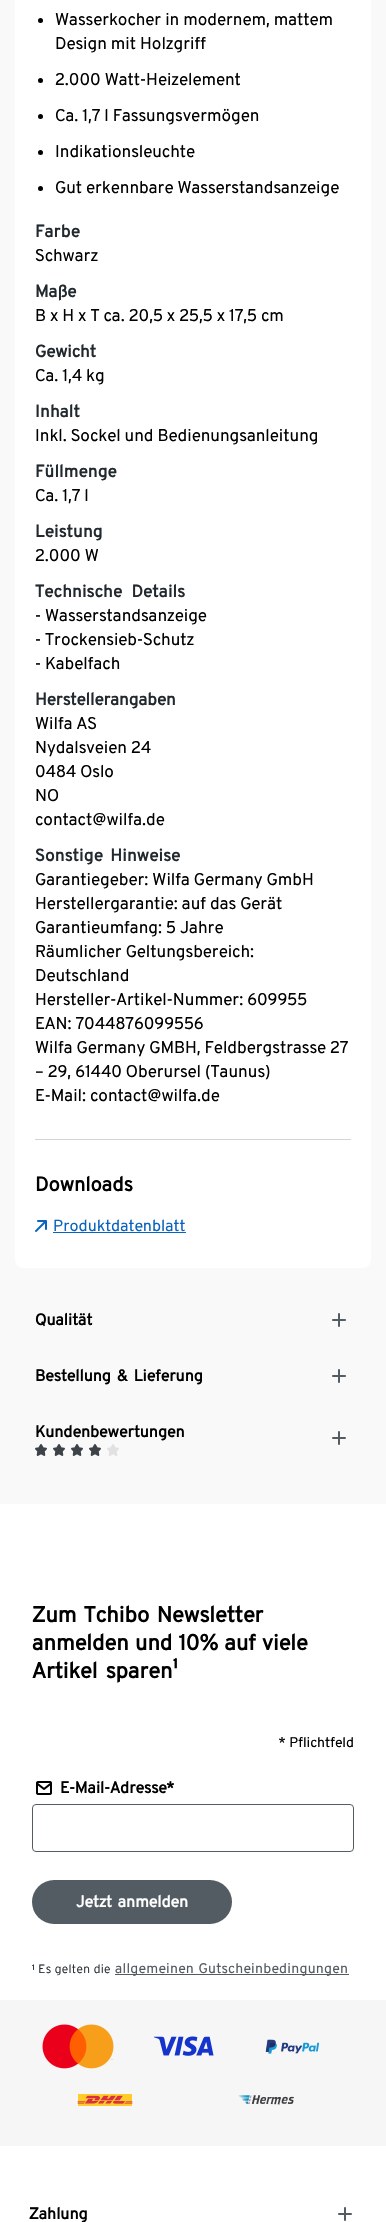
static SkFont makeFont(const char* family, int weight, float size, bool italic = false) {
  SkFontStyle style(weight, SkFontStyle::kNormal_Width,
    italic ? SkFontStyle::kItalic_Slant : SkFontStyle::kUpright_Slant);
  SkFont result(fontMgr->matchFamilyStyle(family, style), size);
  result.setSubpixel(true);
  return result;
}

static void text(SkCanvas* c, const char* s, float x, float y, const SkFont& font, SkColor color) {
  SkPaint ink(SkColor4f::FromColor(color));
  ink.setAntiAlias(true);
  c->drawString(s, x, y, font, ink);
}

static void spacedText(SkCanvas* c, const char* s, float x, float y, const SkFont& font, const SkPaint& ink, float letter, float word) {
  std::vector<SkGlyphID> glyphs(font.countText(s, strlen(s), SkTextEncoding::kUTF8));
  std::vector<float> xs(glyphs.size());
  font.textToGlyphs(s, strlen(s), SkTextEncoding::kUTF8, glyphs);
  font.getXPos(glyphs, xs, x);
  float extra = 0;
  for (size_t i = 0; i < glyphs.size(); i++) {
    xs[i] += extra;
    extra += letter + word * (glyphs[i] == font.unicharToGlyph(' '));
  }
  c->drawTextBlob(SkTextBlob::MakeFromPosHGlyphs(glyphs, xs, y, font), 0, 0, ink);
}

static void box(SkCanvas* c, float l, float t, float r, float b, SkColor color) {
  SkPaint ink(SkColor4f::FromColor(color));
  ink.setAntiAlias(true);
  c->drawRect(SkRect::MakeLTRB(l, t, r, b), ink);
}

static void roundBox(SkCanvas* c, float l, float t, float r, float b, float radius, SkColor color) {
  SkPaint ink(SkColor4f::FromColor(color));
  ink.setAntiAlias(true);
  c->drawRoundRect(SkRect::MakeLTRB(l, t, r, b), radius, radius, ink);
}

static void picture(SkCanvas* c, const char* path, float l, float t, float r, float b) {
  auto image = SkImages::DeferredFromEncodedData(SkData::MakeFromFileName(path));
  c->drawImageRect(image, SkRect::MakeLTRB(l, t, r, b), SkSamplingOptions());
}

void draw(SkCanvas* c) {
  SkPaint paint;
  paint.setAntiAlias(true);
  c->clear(0xffffffff);
  box(c, 0, 0, 386, 1504, 0xfff9f9f9);
  roundBox(c, 15, -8, 371, 1268, 8, 0xffffffff);
  paint.setColor(0xff000000);
  c->drawCircle(40.5f, 20.5f, 2.5f, paint);
  SkFont face1 = makeFont("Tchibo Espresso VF", 400, 17);
  text(c, "Wasserkocher in modernem, mattem", 55, 25, face1, 0xff000000);
  text(c, "Design mit Holzgriff", 55, 49, face1, 0xff000000);
  c->drawCircle(40.5f, 80.5f, 2.5f, paint);
  text(c, "2.000 Watt-Heizelement", 55, 85, face1, 0xff000000);
  c->drawCircle(40.5f, 116.5f, 2.5f, paint);
  text(c, "Ca. 1,7 l Fassungsvermögen", 55, 121, face1, 0xff000000);
  c->drawCircle(40.5f, 152.5f, 2.5f, paint);
  text(c, "Indikationsleuchte", 55, 157, face1, 0xff000000);
  c->drawCircle(40.5f, 188.5f, 2.5f, paint);
  text(c, "Gut erkennbare Wasserstandsanzeige", 55, 193, face1, 0xff000000);
  SkFont face2 = makeFont("Tchibo Espresso VF", 700, 17);
  paint.setColor(0xff21292f);
  spacedText(c, "Farbe", 35, 237, face2, paint, 0.25f, 0);
  text(c, "Schwarz", 35, 261, face1, 0xff000000);
  text(c, "Maße", 35, 297, face2, 0xff21292f);
  text(c, "B x H x T ca. 20,5 x 25,5 x 17,5 cm", 35, 321, face1, 0xff000000);
  text(c, "Gewicht", 35, 357, face2, 0xff21292f);
  text(c, "Ca. 1,4 kg", 35, 381, face1, 0xff000000);
  spacedText(c, "Inhalt", 35, 417, face2, paint, 0.25f, 0);
  text(c, "Inkl. Sockel und Bedienungsanleitung", 35, 441, face1, 0xff000000);
  spacedText(c, "Füllmenge", 35, 477, face2, paint, 0.25f, 0);
  text(c, "Ca. 1,7 l", 35, 501, face1, 0xff000000);
  spacedText(c, "Leistung", 35, 537, face2, paint, 0.25f, 0);
  text(c, "2.000 W", 35, 561, face1, 0xff000000);
  spacedText(c, "Technische Details", 35, 597, face2, paint, 0.25f, 5);
  text(c, "- Wasserstandsanzeige", 35, 621, face1, 0xff000000);
  text(c, "- Trockensieb-Schutz", 35, 645, face1, 0xff000000);
  text(c, "- Kabelfach", 35, 669, face1, 0xff000000);
  text(c, "Herstellerangaben", 35, 705, face2, 0xff21292f);
  text(c, "Wilfa AS", 35, 729, face1, 0xff000000);
  text(c, "Nydalsveien 24", 35, 753, face1, 0xff000000);
  text(c, "0484 Oslo", 35, 777, face1, 0xff000000);
  text(c, "NO", 35, 801, face1, 0xff000000);
  text(c, "contact@wilfa.de", 35, 825, face1, 0xff000000);
  spacedText(c, "Sonstige Hinweise", 35, 861, face2, paint, 0.25f, 3);
  text(c, "Garantiegeber: Wilfa Germany GmbH", 35, 885, face1, 0xff000000);
  text(c, "Herstellergarantie: auf das Gerät", 35, 909, face1, 0xff000000);
  text(c, "Garantieumfang: 5 Jahre", 35, 933, face1, 0xff000000);
  text(c, "Räumlicher Geltungsbereich:", 35, 957, face1, 0xff000000);
  text(c, "Deutschland", 35, 981, face1, 0xff000000);
  text(c, "Hersteller-Artikel-Nummer: 609955", 35, 1005, face1, 0xff000000);
  text(c, "EAN: 7044876099556", 35, 1029, face1, 0xff000000);
  text(c, "Wilfa Germany GMBH, Feldbergstrasse 27", 35, 1053, face1, 0xff000000);
  text(c, "– 29, 61440 Oberursel (Taunus)", 35, 1077, face1, 0xff000000);
  text(c, "E-Mail: contact@wilfa.de", 35, 1101, face1, 0xff000000);
  box(c, 35, 1139, 351, 1140, 0xffd3d4d5);
  SkFont face3 = makeFont("Tchibo Espresso VF", 700, 20);
  text(c, "Downloads", 35, 1191, face3, 0xff000000);
  picture(c, "img_01.png", 35, 1220, 47, 1232);
  SkFont face4 = makeFont("Tchibo Espresso VF", 400, 16);
  text(c, "Produktdatenblatt", 53, 1231, face4, 0xff0a63bd);
  box(c, 53, 1232, 186, 1233, 0xff0a63bd);
  SkFont face5 = makeFont("Tchibo Espresso VF", 700, 16);
  text(c, "Qualität", 35, 1325, face5, 0xff000000);
  picture(c, "img_02.png", 332, 1313, 346, 1327);
  paint.setColor(0xff000000);
  spacedText(c, "Bestellung & Lieferung", 35, 1381, face5, paint, 0, 2);
  picture(c, "img_02.png", 332, 1369, 346, 1383);
  text(c, "Kundenbewertungen", 35, 1437, face5, 0xff000000);
  picture(c, "img_03.png", 35, 1444, 47, 1456);
  picture(c, "img_03.png", 53, 1444, 65, 1456);
  picture(c, "img_03.png", 71, 1444, 83, 1456);
  picture(c, "img_03.png", 89, 1444, 101, 1456);
  picture(c, "img_04.png", 107, 1444, 119, 1456);
  picture(c, "img_02.png", 332, 1431, 346, 1445);
  SkFont face6 = makeFont("Tchibo Espresso VF", 700, 22);
  spacedText(c, "Zum Tchibo Newsletter", 32, 1622, face6, paint, 0, 2);
  spacedText(c, "anmelden und 10% auf viele", 32, 1650, face6, paint, 0, 1);
  spacedText(c, "Artikel sparen¹", 32, 1678, face6, paint, 0, 3);
  SkFont face7 = makeFont("Tchibo Espresso VF", 400, 14);
  spacedText(c, "* Pflichtfeld", 279, 1747, face7, paint, 0, 1);
  picture(c, "img_05.png", 36, 1781, 52, 1795);
  text(c, "E-Mail-Adresse*", 60, 1793, face5, 0xff000000);
  paint.setStyle(SkPaint::kStroke_Style);
  paint.setStrokeWidth(1);
  paint.setColor(0xff545c63);
  c->drawRoundRect(SkRect::MakeLTRB(32.5f, 1804.5f, 353.5f, 1851.5f), 3.5f, 3.5f, paint);
  roundBox(c, 32, 1880, 232, 1924, 22, 0xff545c63);
  paint.setStyle(SkPaint::kFill_Style);
  paint.setColor(0xffffffff);
  spacedText(c, "Jetzt anmelden", 76, 1907, face5, paint, 0, 2);
  SkFont face8 = makeFont("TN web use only", 300, 12);
  paint.setColor(0xff21292f);
  spacedText(c, "¹ Es gelten die", 32, 1973, face8, paint, 0.25f, 0);
  box(c, 115, 1974, 349, 1975, 0xff545c63);
  paint.setColor(0xff545c63);
  spacedText(c, "allgemeinen Gutscheinbedingungen", 115, 1973, face7, paint, 0.25f, 1);
  box(c, 0, 2000, 386, 2146, 0xfff6f6f6);
  picture(c, "img_06.png", 42, 2024, 114, 2069);
  picture(c, "img_07.png", 153, 2036, 214, 2056);
  picture(c, "img_08.png", 265, 2039, 319, 2054);
  picture(c, "img_09.png", 77, 2094, 133, 2106);
  picture(c, "img_10.png", 238, 2095, 294, 2105);
  text(c, "Zahlung", 29, 2219, face5, 0xff000000);
  picture(c, "img_11.png", 338, 2207, 352, 2221);
}
